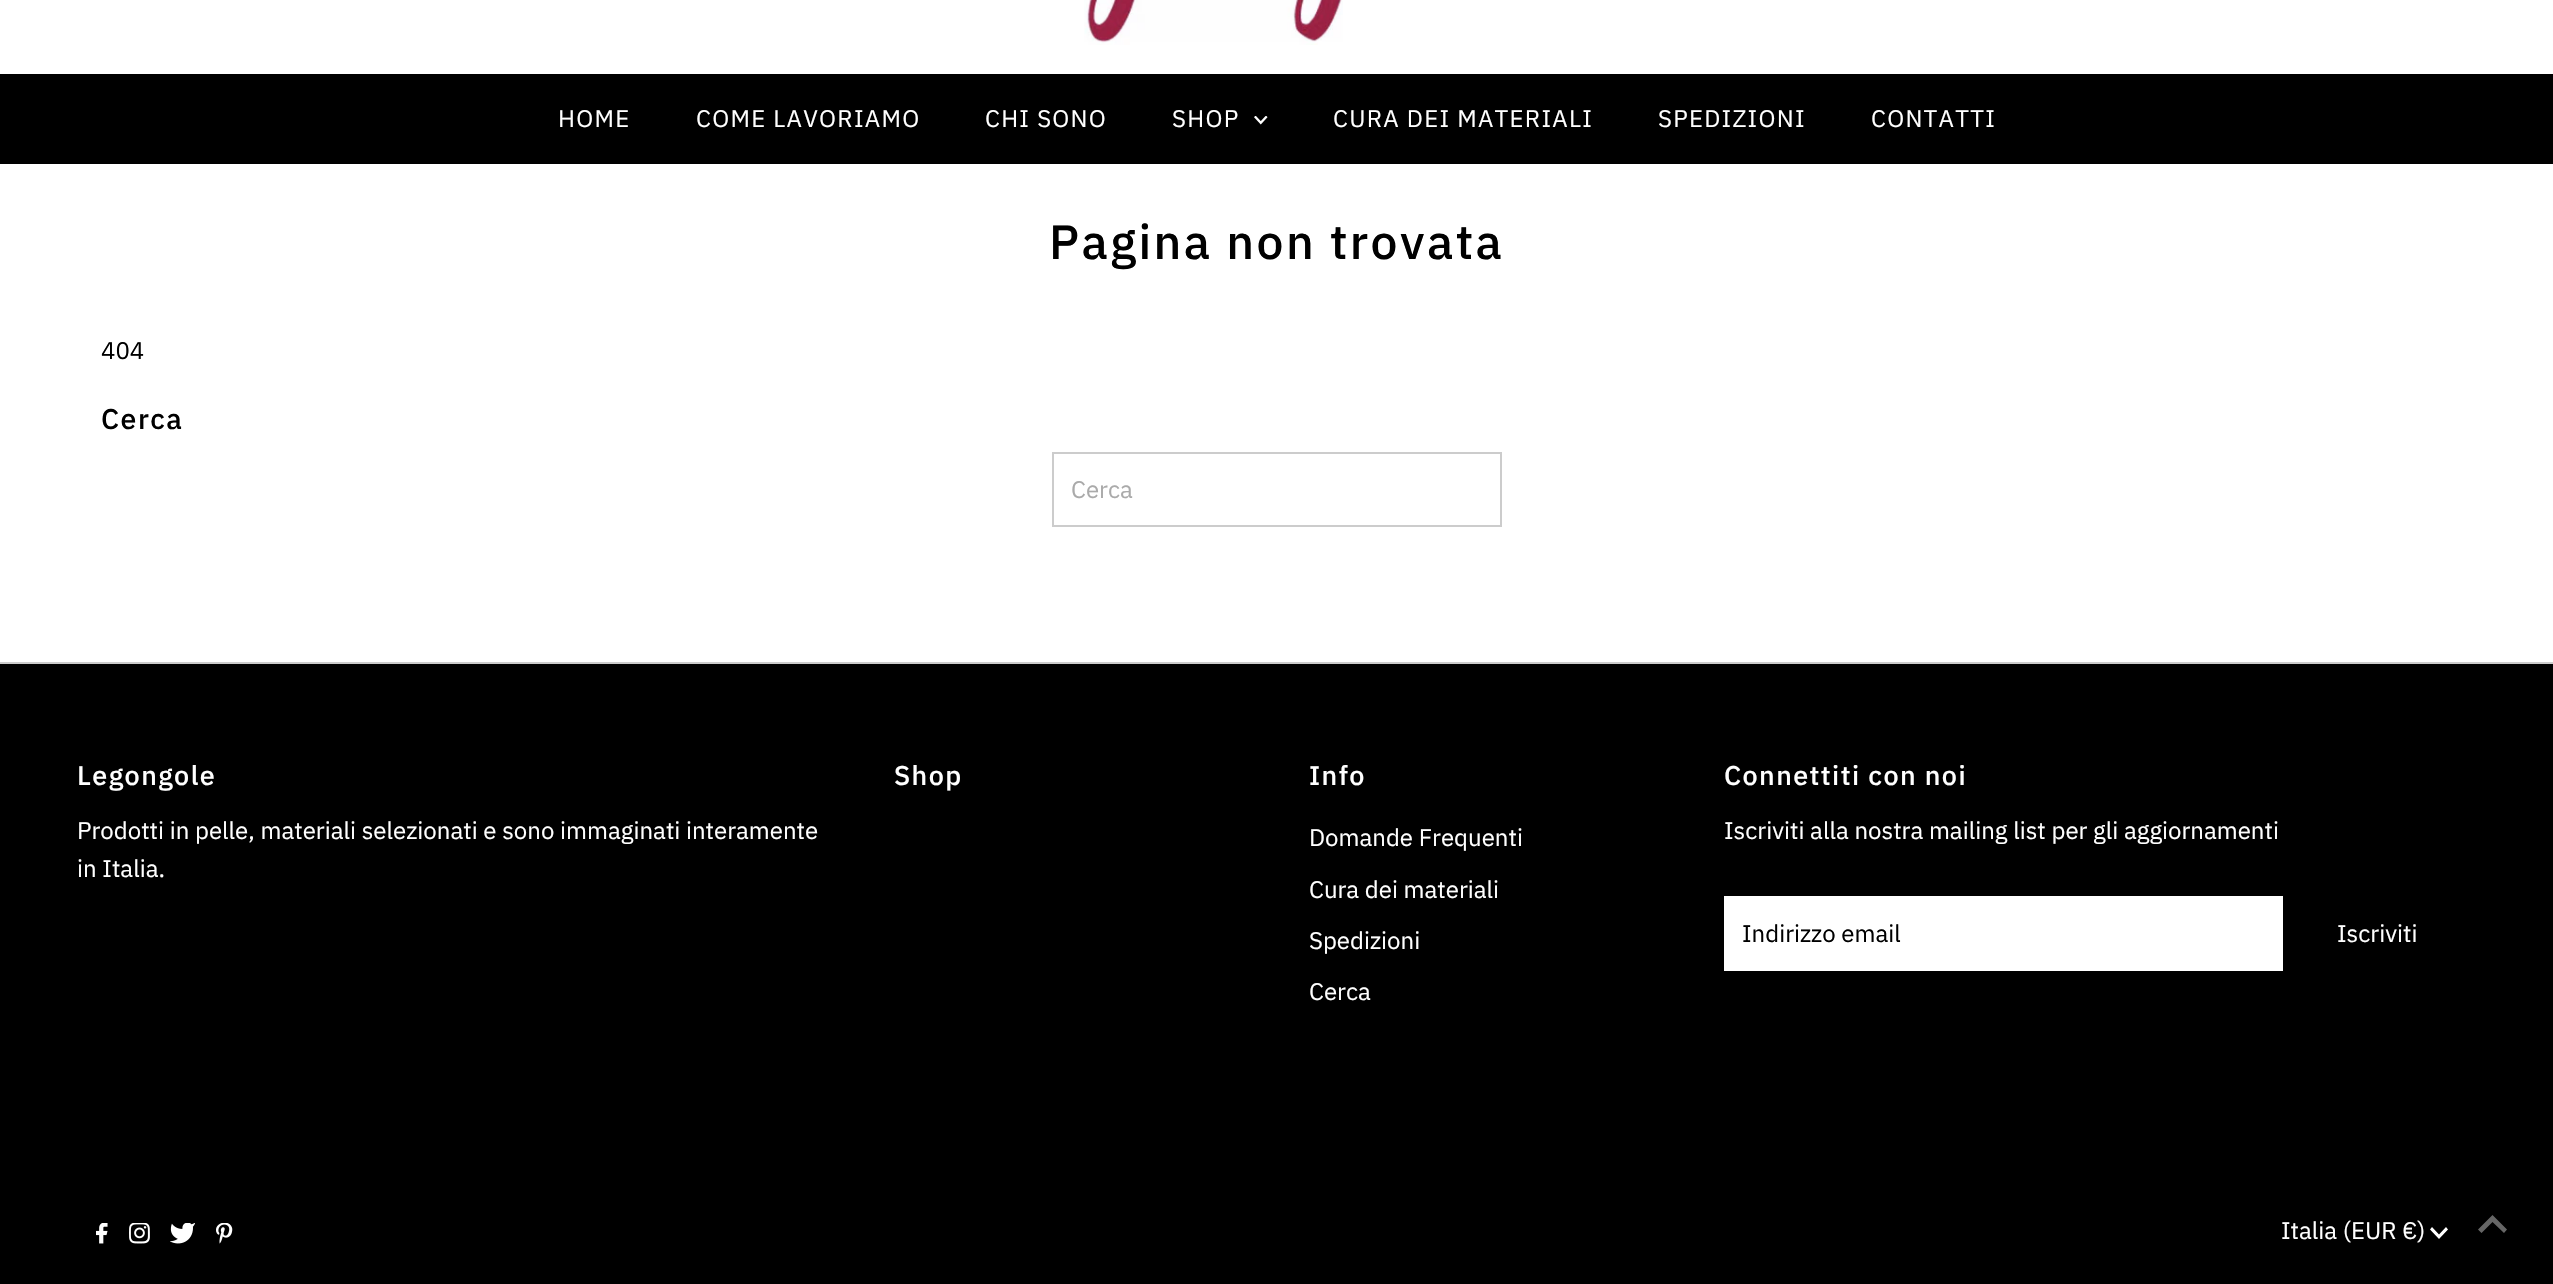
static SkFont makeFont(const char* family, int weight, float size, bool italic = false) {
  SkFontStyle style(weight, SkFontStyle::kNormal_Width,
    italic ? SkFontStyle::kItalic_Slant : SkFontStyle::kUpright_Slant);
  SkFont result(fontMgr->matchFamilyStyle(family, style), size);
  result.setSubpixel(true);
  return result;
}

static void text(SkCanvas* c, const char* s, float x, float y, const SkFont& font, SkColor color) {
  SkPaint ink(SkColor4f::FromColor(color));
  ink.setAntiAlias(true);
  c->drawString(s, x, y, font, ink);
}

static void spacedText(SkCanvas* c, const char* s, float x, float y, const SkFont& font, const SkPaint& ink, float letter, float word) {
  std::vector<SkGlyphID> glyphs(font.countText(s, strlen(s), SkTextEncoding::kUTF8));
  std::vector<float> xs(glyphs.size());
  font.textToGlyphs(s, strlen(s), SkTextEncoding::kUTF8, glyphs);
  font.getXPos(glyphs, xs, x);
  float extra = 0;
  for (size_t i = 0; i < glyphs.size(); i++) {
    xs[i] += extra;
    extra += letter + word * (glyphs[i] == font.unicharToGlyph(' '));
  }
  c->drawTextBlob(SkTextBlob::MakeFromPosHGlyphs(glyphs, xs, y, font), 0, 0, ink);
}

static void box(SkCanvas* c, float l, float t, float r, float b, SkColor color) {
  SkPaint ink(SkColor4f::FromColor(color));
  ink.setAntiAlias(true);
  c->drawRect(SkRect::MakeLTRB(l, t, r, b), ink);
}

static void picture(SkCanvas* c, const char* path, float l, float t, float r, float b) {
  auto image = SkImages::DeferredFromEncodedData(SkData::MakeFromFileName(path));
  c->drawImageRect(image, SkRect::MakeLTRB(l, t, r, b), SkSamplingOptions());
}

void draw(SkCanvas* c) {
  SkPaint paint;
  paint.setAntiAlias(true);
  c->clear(0xffffffff);
  picture(c, "img_01.png", 1084, 0, 1343, 45);
  box(c, 0, 74, 2553, 164, 0xff000000);
  SkFont face1 = makeFont("IBM Plex Sans", 400, 24);
  paint.setColor(0xffffffff);
  spacedText(c, "HOME", 558, 127, face1, paint, 1.25f, 0);
  spacedText(c, "COME LAVORIAMO", 696, 127, face1, paint, 1.25f, 0);
  spacedText(c, "CHI SONO", 985, 127, face1, paint, 1.25f, 0);
  spacedText(c, "SHOP", 1172, 127, face1, paint, 1.25f, 0);
  picture(c, "img_02.png", 1254, 116, 1268, 125);
  spacedText(c, "CURA DEI MATERIALI", 1333, 127, face1, paint, 1.25f, 0);
  spacedText(c, "SPEDIZIONI", 1658, 127, face1, paint, 1.25f, 0);
  spacedText(c, "CONTATTI", 1871, 127, face1, paint, 1.25f, 0);
  SkFont face2 = makeFont("IBM Plex Sans", 500, 48);
  paint.setColor(0xff000000);
  spacedText(c, "Pagina non trovata", 1049, 259, face2, paint, 2.4f, 0);
  text(c, "404", 101, 359, face1, 0xff000000);
  SkFont face3 = makeFont("IBM Plex Sans", 500, 28.5f);
  spacedText(c, "Cerca", 101, 429, face3, paint, 1.5f, 0);
  paint.setStyle(SkPaint::kStroke_Style);
  paint.setStrokeWidth(2);
  paint.setColor(0xffcccccc);
  c->drawRect(SkRect::MakeLTRB(1053, 453, 1501, 526), paint);
  text(c, "Cerca", 1071, 498, face1, 0xffaaaaaa);
  box(c, 0, 664, 2553, 1284, 0xff000000);
  box(c, 0, 662, 2553, 664, 0xffcccccc);
  SkFont face4 = makeFont("IBM Plex Sans", 500, 27);
  paint.setStyle(SkPaint::kFill_Style);
  paint.setColor(0xffffffff);
  spacedText(c, "Legongole", 77, 785, face4, paint, 1.4f, 0);
  text(c, "Prodotti in pelle, materiali selezionati e sono immaginati interamente", 77, 839, face1, 0xffffffff);
  text(c, "in Italia.", 77, 877, face1, 0xffffffff);
  spacedText(c, "Shop", 894, 785, face4, paint, 1.4f, 0);
  spacedText(c, "Info", 1309, 785, face4, paint, 1.4f, 0);
  text(c, "Domande Frequenti", 1309, 846, face1, 0xffffffff);
  text(c, "Cura dei materiali", 1309, 898, face1, 0xffffffff);
  text(c, "Spedizioni", 1309, 949, face1, 0xffffffff);
  text(c, "Cerca", 1309, 1000, face1, 0xffffffff);
  spacedText(c, "Connettiti con noi", 1724, 785, face4, paint, 1.4f, 0);
  text(c, "Iscriviti alla nostra mailing list per gli aggiornamenti", 1724, 839, face1, 0xffffffff);
  box(c, 1724, 896, 2283, 971, 0xffffffff);
  text(c, "Indirizzo email", 1742, 942, face1, 0xff000000);
  text(c, "Iscriviti", 2337, 942, face1, 0xffffffff);
  picture(c, "img_03.png", 96, 1223, 108, 1244);
  picture(c, "img_04.png", 129, 1223, 150, 1244);
  picture(c, "img_05.png", 170, 1223, 195, 1244);
  picture(c, "img_06.png", 216, 1223, 233, 1244);
  text(c, "Italia (EUR €)", 2281, 1239, face1, 0xffffffff);
  c->drawPath(SkPathBuilder().moveTo(2446, 1227).lineTo(2439, 1234.5f).lineTo(2432, 1227).lineTo(2430, 1229.5f).lineTo(2439, 1239).lineTo(2448, 1229.5f).close().detach(), paint);
  paint.setColor(0xff666666);
  c->drawPath(SkPathBuilder().moveTo(2492.5f, 1215).lineTo(2478, 1229.5f).lineTo(2481.5f, 1233).lineTo(2492.5f, 1222).lineTo(2504, 1233).lineTo(2507, 1229.5f).close().detach(), paint);
}
